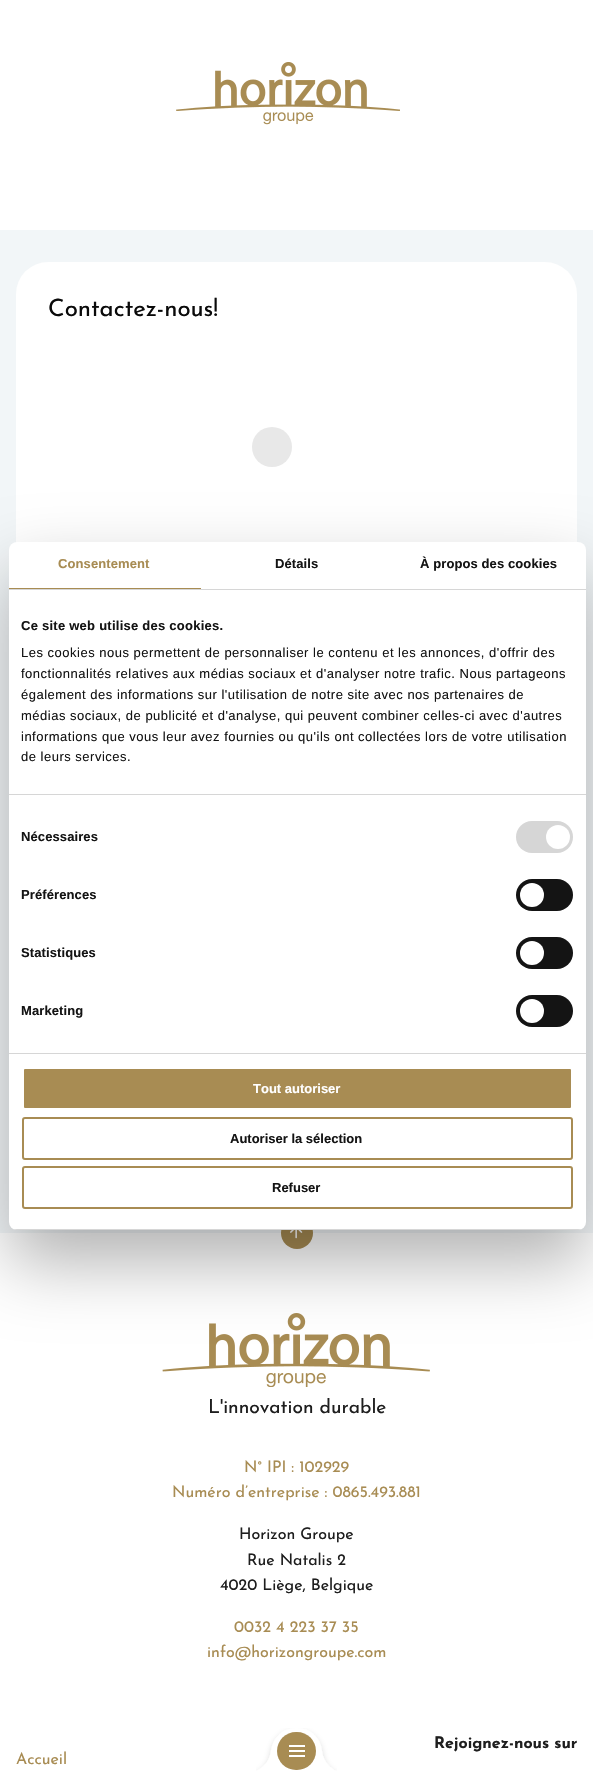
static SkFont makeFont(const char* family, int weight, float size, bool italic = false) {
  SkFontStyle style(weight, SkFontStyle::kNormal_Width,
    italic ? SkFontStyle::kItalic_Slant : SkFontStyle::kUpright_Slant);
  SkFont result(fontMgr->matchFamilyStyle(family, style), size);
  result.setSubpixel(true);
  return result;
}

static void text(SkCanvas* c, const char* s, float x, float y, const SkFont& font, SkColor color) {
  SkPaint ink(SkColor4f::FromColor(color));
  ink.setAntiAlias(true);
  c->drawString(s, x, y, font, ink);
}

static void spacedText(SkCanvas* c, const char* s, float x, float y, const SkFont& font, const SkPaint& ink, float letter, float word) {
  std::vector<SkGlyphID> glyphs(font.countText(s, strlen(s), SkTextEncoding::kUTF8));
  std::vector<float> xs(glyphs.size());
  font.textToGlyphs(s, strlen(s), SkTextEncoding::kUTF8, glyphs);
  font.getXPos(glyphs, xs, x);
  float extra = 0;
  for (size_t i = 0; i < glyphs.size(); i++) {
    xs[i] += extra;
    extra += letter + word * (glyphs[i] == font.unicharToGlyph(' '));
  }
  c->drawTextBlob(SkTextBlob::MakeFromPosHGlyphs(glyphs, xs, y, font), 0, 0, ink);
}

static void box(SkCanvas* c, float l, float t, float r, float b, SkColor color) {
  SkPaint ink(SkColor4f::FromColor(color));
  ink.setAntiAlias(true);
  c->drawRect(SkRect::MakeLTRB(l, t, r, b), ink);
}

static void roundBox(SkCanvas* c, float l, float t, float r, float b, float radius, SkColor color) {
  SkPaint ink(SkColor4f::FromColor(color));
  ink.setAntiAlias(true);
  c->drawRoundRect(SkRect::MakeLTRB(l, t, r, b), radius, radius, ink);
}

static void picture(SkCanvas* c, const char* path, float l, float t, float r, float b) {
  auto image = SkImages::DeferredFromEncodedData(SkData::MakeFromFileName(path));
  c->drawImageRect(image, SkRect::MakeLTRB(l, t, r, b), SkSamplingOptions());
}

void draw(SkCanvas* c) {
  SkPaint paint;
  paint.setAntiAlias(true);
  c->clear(0xfff2f6f8);
  box(c, 0, 0, 593, 230, 0xffffffff);
  picture(c, "img_01.png", 176, 62, 400, 125);
  box(c, 0, 1233, 593, 1771, 0xffffffff);
  picture(c, "img_02.png", 256, 1728, 337, 1771);
  roundBox(c, 277, 1732, 316, 1770, 19, 0xffa88c53);
  box(c, 289, 1745, 305, 1747, 0xffffffff);
  box(c, 289, 1750, 305, 1752, 0xffffffff);
  box(c, 289, 1755, 305, 1757, 0xffffffff);
  roundBox(c, 16, 262, 577, 599, 32, 0xffffffff);
  SkFont face1 = makeFont("Josefin Sans", 400, 24);
  text(c, "Contactez-nous!", 48, 316, face1, 0xff0a0a0a);
  paint.setColor(0xffe8e8e8);
  c->drawCircle(272, 447, 20, paint);
  paint.setColor(0xffa88c53);
  c->drawCircle(297, 1233, 16, paint);
  picture(c, "img_03.png", 290, 1230, 303, 1239);
  picture(c, "img_04.png", 162, 1313, 430, 1387);
  SkFont face2 = makeFont("Josefin Sans", 400, 19.25f);
  text(c, "L'innovation durable", 208, 1413, face2, 0xff1e1e1e);
  SkFont face3 = makeFont("Josefin Sans", 400, 16);
  text(c, "N° IPI : 102929", 244, 1472, face3, 0xffa88c53);
  text(c, "Numéro d’entreprise : 0865.493.881", 172, 1497, face3, 0xffa88c53);
  text(c, "Horizon Groupe", 239, 1539, face3, 0xff1e1e1e);
  text(c, "Rue Natalis 2", 247, 1565, face3, 0xff1e1e1e);
  text(c, "4020 Liège, Belgique", 220, 1590, face3, 0xff1e1e1e);
  text(c, "0032 4 223 37 35", 234, 1632, face3, 0xffa88c53);
  text(c, "info@horizongroupe.com", 207, 1657, face3, 0xffa88c53);
  SkFont face4 = makeFont("Josefin Sans", 700, 16);
  text(c, "Rejoignez-nous sur", 434, 1748, face4, 0xff1e1e1e);
  text(c, "Accueil", 16, 1764, face3, 0xffa88c53);
  paint.setColor(0x4d000000);
  paint.setMaskFilter(SkMaskFilter::MakeBlur(kNormal_SkBlurStyle, 34));
  c->drawRoundRect(SkRect::MakeLTRB(9, 574, 586, 1262), 8, 8, paint);
  paint.setMaskFilter(nullptr);
  roundBox(c, 9, 542, 586, 1230, 8, 0xffffffff);
  box(c, 9, 589, 586, 590, 0xffd6d6d6);
  box(c, 9, 588, 201, 589, 0xffa88c53);
  SkFont face5 = makeFont("Liberation Sans", 700, 13);
  paint.setColor(0xffa88c53);
  spacedText(c, "Consentement", 58, 568, face5, paint, 0.1f, 0);
  paint.setColor(0xff141414);
  spacedText(c, "Détails", 275, 568, face5, paint, 0.1f, 0);
  spacedText(c, "À propos des cookies", 420, 568, face5, paint, 0.1f, 0);
  box(c, 9, 794, 586, 795, 0xffd6d6d6);
  spacedText(c, "Ce site web utilise des cookies.", 21, 630, face5, paint, 0.25f, 0);
  SkFont face6 = makeFont("Liberation Sans", 400, 13);
  spacedText(c, "Les cookies nous permettent de personnaliser le contenu et les annonces, d'offrir des", 21, 657, face6, paint, 0.5f, 0);
  spacedText(c, "fonctionnalités relatives aux médias sociaux et d'analyser notre trafic. Nous partageons", 21, 678, face6, paint, 0.5f, 0);
  spacedText(c, "également des informations sur l'utilisation de notre site avec nos partenaires de", 21, 699, face6, paint, 0.5f, 0);
  spacedText(c, "médias sociaux, de publicité et d'analyse, qui peuvent combiner celles-ci avec d'autres", 21, 720, face6, paint, 0.5f, 0);
  spacedText(c, "informations que vous leur avez fournies ou qu'ils ont collectées lors de votre utilisation", 21, 741, face6, paint, 0.5f, 0);
  spacedText(c, "de leurs services.", 21, 761, face6, paint, 0.5f, 0);
  box(c, 9, 1053, 586, 1054, 0xffd6d6d6);
  spacedText(c, "Nécessaires", 21, 841, face5, paint, 0.1f, 0);
  roundBox(c, 516, 821, 573, 853, 16, 0xffd6d6d6);
  paint.setColor(0xffffffff);
  c->drawCircle(558, 837, 12, paint);
  paint.setColor(0xff141414);
  spacedText(c, "Préférences", 21, 899, face5, paint, 0.1f, 0);
  roundBox(c, 516, 879, 573, 911, 16, 0xff141414);
  paint.setColor(0xffffffff);
  c->drawCircle(532, 895, 12, paint);
  paint.setColor(0xff141414);
  spacedText(c, "Statistiques", 21, 957, face5, paint, 0.1f, 0);
  roundBox(c, 516, 937, 573, 969, 16, 0xff141414);
  paint.setColor(0xffffffff);
  c->drawCircle(532, 953, 12, paint);
  paint.setColor(0xff141414);
  spacedText(c, "Marketing", 21, 1015, face5, paint, 0.1f, 0);
  roundBox(c, 516, 995, 573, 1027, 16, 0xff141414);
  paint.setColor(0xffffffff);
  c->drawCircle(532, 1011, 12, paint);
  c->save();
  c->clipPath(SkPathBuilder().moveTo(17, 542).lineTo(578, 542).cubicTo(582.5f, 542, 586, 545.5f, 586, 550).lineTo(586, 1222).cubicTo(586, 1226.5f, 582.5f, 1230, 578, 1230).lineTo(17, 1230).cubicTo(12.5f, 1230, 9, 1226.5f, 9, 1222).lineTo(9, 550).cubicTo(9, 545.5f, 12.5f, 542, 17, 542).close().detach(), true);
  box(c, 9, 1229, 586, 1230, 0xffd6d6d6);
  c->restore();
  paint.setColor(0xffa88c53);
  c->drawRoundRect(SkRect::MakeLTRB(23, 1068, 572, 1109), 2, 2, paint);
  paint.setStyle(SkPaint::kStroke_Style);
  paint.setStrokeWidth(2);
  paint.setColor(0xffffffff);
  c->drawRoundRect(SkRect::MakeLTRB(23, 1068, 572, 1109), 2, 2, paint);
  text(c, "Tout autoriser", 253, 1093, face5, 0xffffffff);
  paint.setColor(0xffa88c53);
  c->drawRoundRect(SkRect::MakeLTRB(23, 1118, 572, 1159), 2, 2, paint);
  text(c, "Autoriser la sélection", 230, 1143, face5, 0xff141414);
  c->drawRoundRect(SkRect::MakeLTRB(23, 1167, 572, 1208), 2, 2, paint);
  text(c, "Refuser", 272, 1192, face5, 0xff141414);
}
